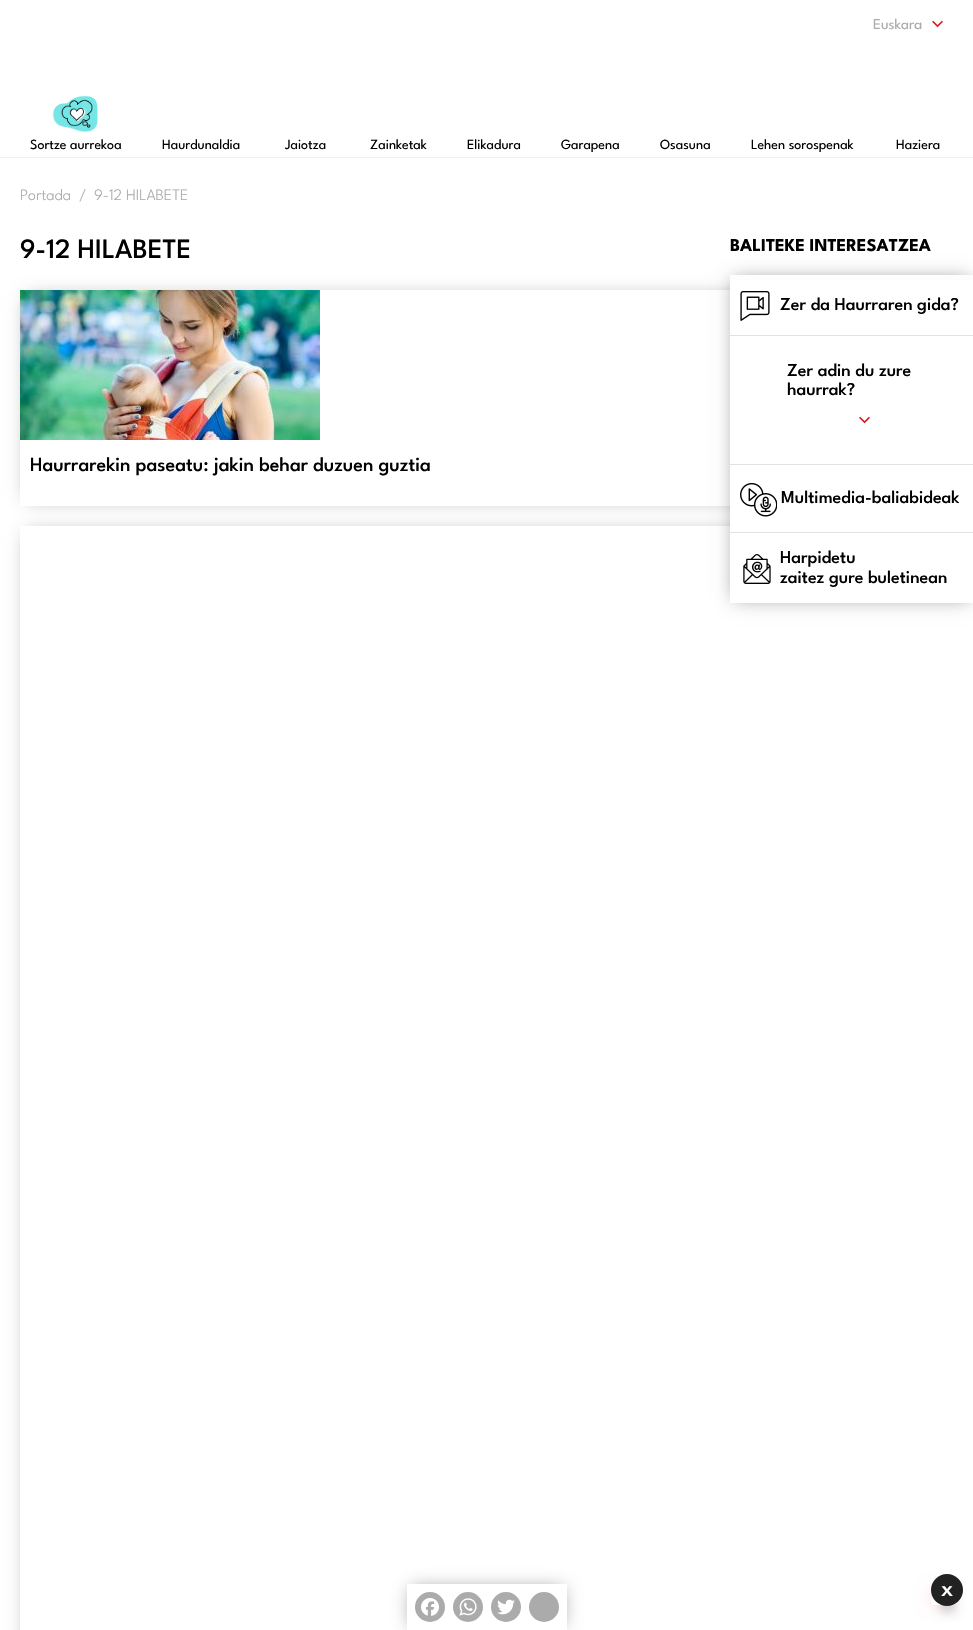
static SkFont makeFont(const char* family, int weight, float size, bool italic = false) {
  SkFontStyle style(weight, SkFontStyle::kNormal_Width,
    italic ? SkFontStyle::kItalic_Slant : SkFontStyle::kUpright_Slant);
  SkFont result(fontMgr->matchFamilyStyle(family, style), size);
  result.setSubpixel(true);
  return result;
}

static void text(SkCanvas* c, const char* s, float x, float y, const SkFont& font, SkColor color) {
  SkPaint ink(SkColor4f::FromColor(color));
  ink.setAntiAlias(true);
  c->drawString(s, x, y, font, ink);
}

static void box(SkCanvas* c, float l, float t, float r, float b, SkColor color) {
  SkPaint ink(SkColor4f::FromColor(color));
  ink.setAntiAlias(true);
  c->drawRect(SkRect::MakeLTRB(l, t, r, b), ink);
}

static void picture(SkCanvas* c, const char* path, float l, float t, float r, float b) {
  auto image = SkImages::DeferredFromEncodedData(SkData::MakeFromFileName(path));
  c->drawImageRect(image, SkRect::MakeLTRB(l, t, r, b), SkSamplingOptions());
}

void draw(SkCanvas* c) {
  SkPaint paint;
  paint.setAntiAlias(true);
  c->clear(0xffffffff);
  box(c, 0, 157, 973, 158, 0xfff0f0f0);
  SkFont face1 = makeFont("League Spartan", 400, 15);
  text(c, "Euskara", 873, 29, face1, 0xffababab);
  picture(c, "img_01.png", 932, 20, 943, 28);
  picture(c, "img_02.png", 52, 95, 98, 132);
  SkFont face2 = makeFont("League Spartan", 400, 14);
  text(c, "Sortze aurrekoa", 30, 149, face2, 0xff000000);
  text(c, "Haurdunaldia", 162, 149, face2, 0xff000000);
  text(c, "Jaiotza", 285, 149, face2, 0xff000000);
  text(c, "Zainketak", 370, 149, face2, 0xff000000);
  text(c, "Elikadura", 467, 149, face2, 0xff000000);
  text(c, "Garapena", 561, 149, face2, 0xff000000);
  text(c, "Osasuna", 660, 149, face2, 0xff000000);
  text(c, "Lehen sorospenak", 751, 149, face2, 0xff000000);
  text(c, "Haziera", 896, 149, face2, 0xff000000);
  SkFont face3 = makeFont("League Spartan", 300, 16);
  text(c, "Portada", 20, 200, face3, 0xffababab);
  text(c, "/", 79, 200, face3, 0xffababab);
  text(c, "9-12 HILABETE", 94, 200, face3, 0xffababab);
  SkFont face4 = makeFont("League Spartan", 500, 28);
  text(c, "9-12 HILABETE", 20, 258, face4, 0xff000000);
  c->save();
  c->clipPath(SkPathBuilder(SkPathFillType::kEvenOdd).moveTo(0, 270).lineTo(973, 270).lineTo(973, 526).lineTo(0, 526).close().moveTo(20, 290).lineTo(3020, 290).lineTo(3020, 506).lineTo(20, 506).close().detach(), true);
  paint.setColor(0x66000000);
  paint.setMaskFilter(SkMaskFilter::MakeBlur(kNormal_SkBlurStyle, 9));
  c->drawRect(SkRect::MakeLTRB(28, 298, 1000, 498), paint);
  paint.setMaskFilter(nullptr);
  c->restore();
  picture(c, "img_03.png", 20, 290, 320, 440);
  SkFont face5 = makeFont("League Spartan", 500, 20);
  text(c, "Haurrarekin paseatu: jakin behar duzuen guztia", 30, 471, face5, 0xff000000);
  c->save();
  c->clipPath(SkPathBuilder(SkPathFillType::kEvenOdd).moveTo(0, 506).lineTo(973, 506).lineTo(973, 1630).lineTo(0, 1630).close().moveTo(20, 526).lineTo(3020, 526).lineTo(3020, 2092).lineTo(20, 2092).close().detach(), true);
  paint.setMaskFilter(SkMaskFilter::MakeBlur(kNormal_SkBlurStyle, 9));
  c->drawRect(SkRect::MakeLTRB(28, 534, 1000, 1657), paint);
  paint.setMaskFilter(nullptr);
  c->restore();
  c->save();
  c->clipPath(SkPathBuilder(SkPathFillType::kEvenOdd).moveTo(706, 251).lineTo(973, 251).lineTo(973, 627).lineTo(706, 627).close().moveTo(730, 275).lineTo(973, 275).lineTo(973, 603).lineTo(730, 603).close().detach(), true);
  paint.setMaskFilter(SkMaskFilter::MakeBlur(kNormal_SkBlurStyle, 9));
  c->drawRect(SkRect::MakeLTRB(734, 279, 969, 599), paint);
  paint.setMaskFilter(nullptr);
  c->restore();
  SkFont face6 = makeFont("League Spartan", 700, 18);
  text(c, "BALITEKE INTERESATZEA", 730, 251, face6, 0xff000000);
  box(c, 730, 280, 973, 290, 0xffffffff);
  box(c, 730, 335, 973, 336, 0xffe2e2e2);
  picture(c, "img_04.png", 740, 291, 770, 321);
  SkFont face7 = makeFont("League Spartan", 500, 18);
  text(c, "Zer da Haurraren gida?", 780, 310, face7, 0xff000000);
  box(c, 730, 464, 973, 465, 0xffe2e2e2);
  text(c, "Zer adin du zure", 787, 376, face7, 0xff000000);
  text(c, "haurrak?", 787, 395, face7, 0xff000000);
  picture(c, "img_01.png", 859, 416, 870, 424);
  box(c, 730, 506, 973, 526, 0xffffffff);
  box(c, 730, 532, 973, 533, 0xffe2e2e2);
  picture(c, "img_05.png", 740, 482, 777, 517);
  text(c, "Multimedia-baliabideak", 781, 503, face7, 0xff000000);
  picture(c, "img_06.png", 743, 554, 771, 584);
  text(c, "Harpidetu", 780, 563, face7, 0xff000000);
  text(c, "zaitez gure buletinean", 780, 583, face7, 0xff000000);
  c->save();
  c->clipPath(SkPathBuilder(SkPathFillType::kEvenOdd).moveTo(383, 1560).lineTo(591, 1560).lineTo(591, 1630).lineTo(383, 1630).close().moveTo(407, 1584).lineTo(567, 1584).lineTo(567, 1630).lineTo(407, 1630).close().detach(), true);
  paint.setMaskFilter(SkMaskFilter::MakeBlur(kNormal_SkBlurStyle, 9));
  c->drawRect(SkRect::MakeLTRB(411, 1588, 563, 1626), paint);
  paint.setMaskFilter(nullptr);
  c->restore();
  paint.setColor(0xffababab);
  c->drawCircle(430, 1607, 15, paint);
  picture(c, "img_07.png", 421, 1598, 439, 1616);
  c->drawCircle(468, 1607, 15, paint);
  picture(c, "img_08.png", 459, 1598, 477, 1616);
  c->drawCircle(506, 1607, 15, paint);
  picture(c, "img_09.png", 497, 1599, 515, 1615);
  c->drawCircle(544, 1607, 15, paint);
  c->save();
  c->clipPath(SkPathBuilder(SkPathFillType::kEvenOdd).moveTo(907, 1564).lineTo(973, 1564).lineTo(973, 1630).lineTo(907, 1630).close().moveTo(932, 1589).lineTo(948, 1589).lineTo(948, 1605).lineTo(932, 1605).close().detach(), true);
  paint.setColor(0x26ff0000);
  paint.setMaskFilter(SkMaskFilter::MakeBlur(kNormal_SkBlurStyle, 8));
  c->drawRect(SkRect::MakeLTRB(932, 1589, 948, 1605), paint);
  paint.setMaskFilter(nullptr);
  c->restore();
  c->save();
  c->clipPath(SkPathBuilder(SkPathFillType::kEvenOdd).moveTo(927, 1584).lineTo(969, 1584).lineTo(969, 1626).lineTo(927, 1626).close().moveTo(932, 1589).lineTo(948, 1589).lineTo(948, 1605).lineTo(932, 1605).close().detach(), true);
  paint.setColor(0x26000000);
  paint.setMaskFilter(SkMaskFilter::MakeBlur(kNormal_SkBlurStyle, 4));
  c->drawRect(SkRect::MakeLTRB(940, 1597, 956, 1613), paint);
  paint.setMaskFilter(nullptr);
  c->restore();
  paint.setColor(0xff222222);
  c->drawCircle(947, 1590, 16, paint);
  SkFont face8 = makeFont("League Spartan", 500, 24);
  text(c, "x", 941, 1596, face8, 0xffffffff);
}
